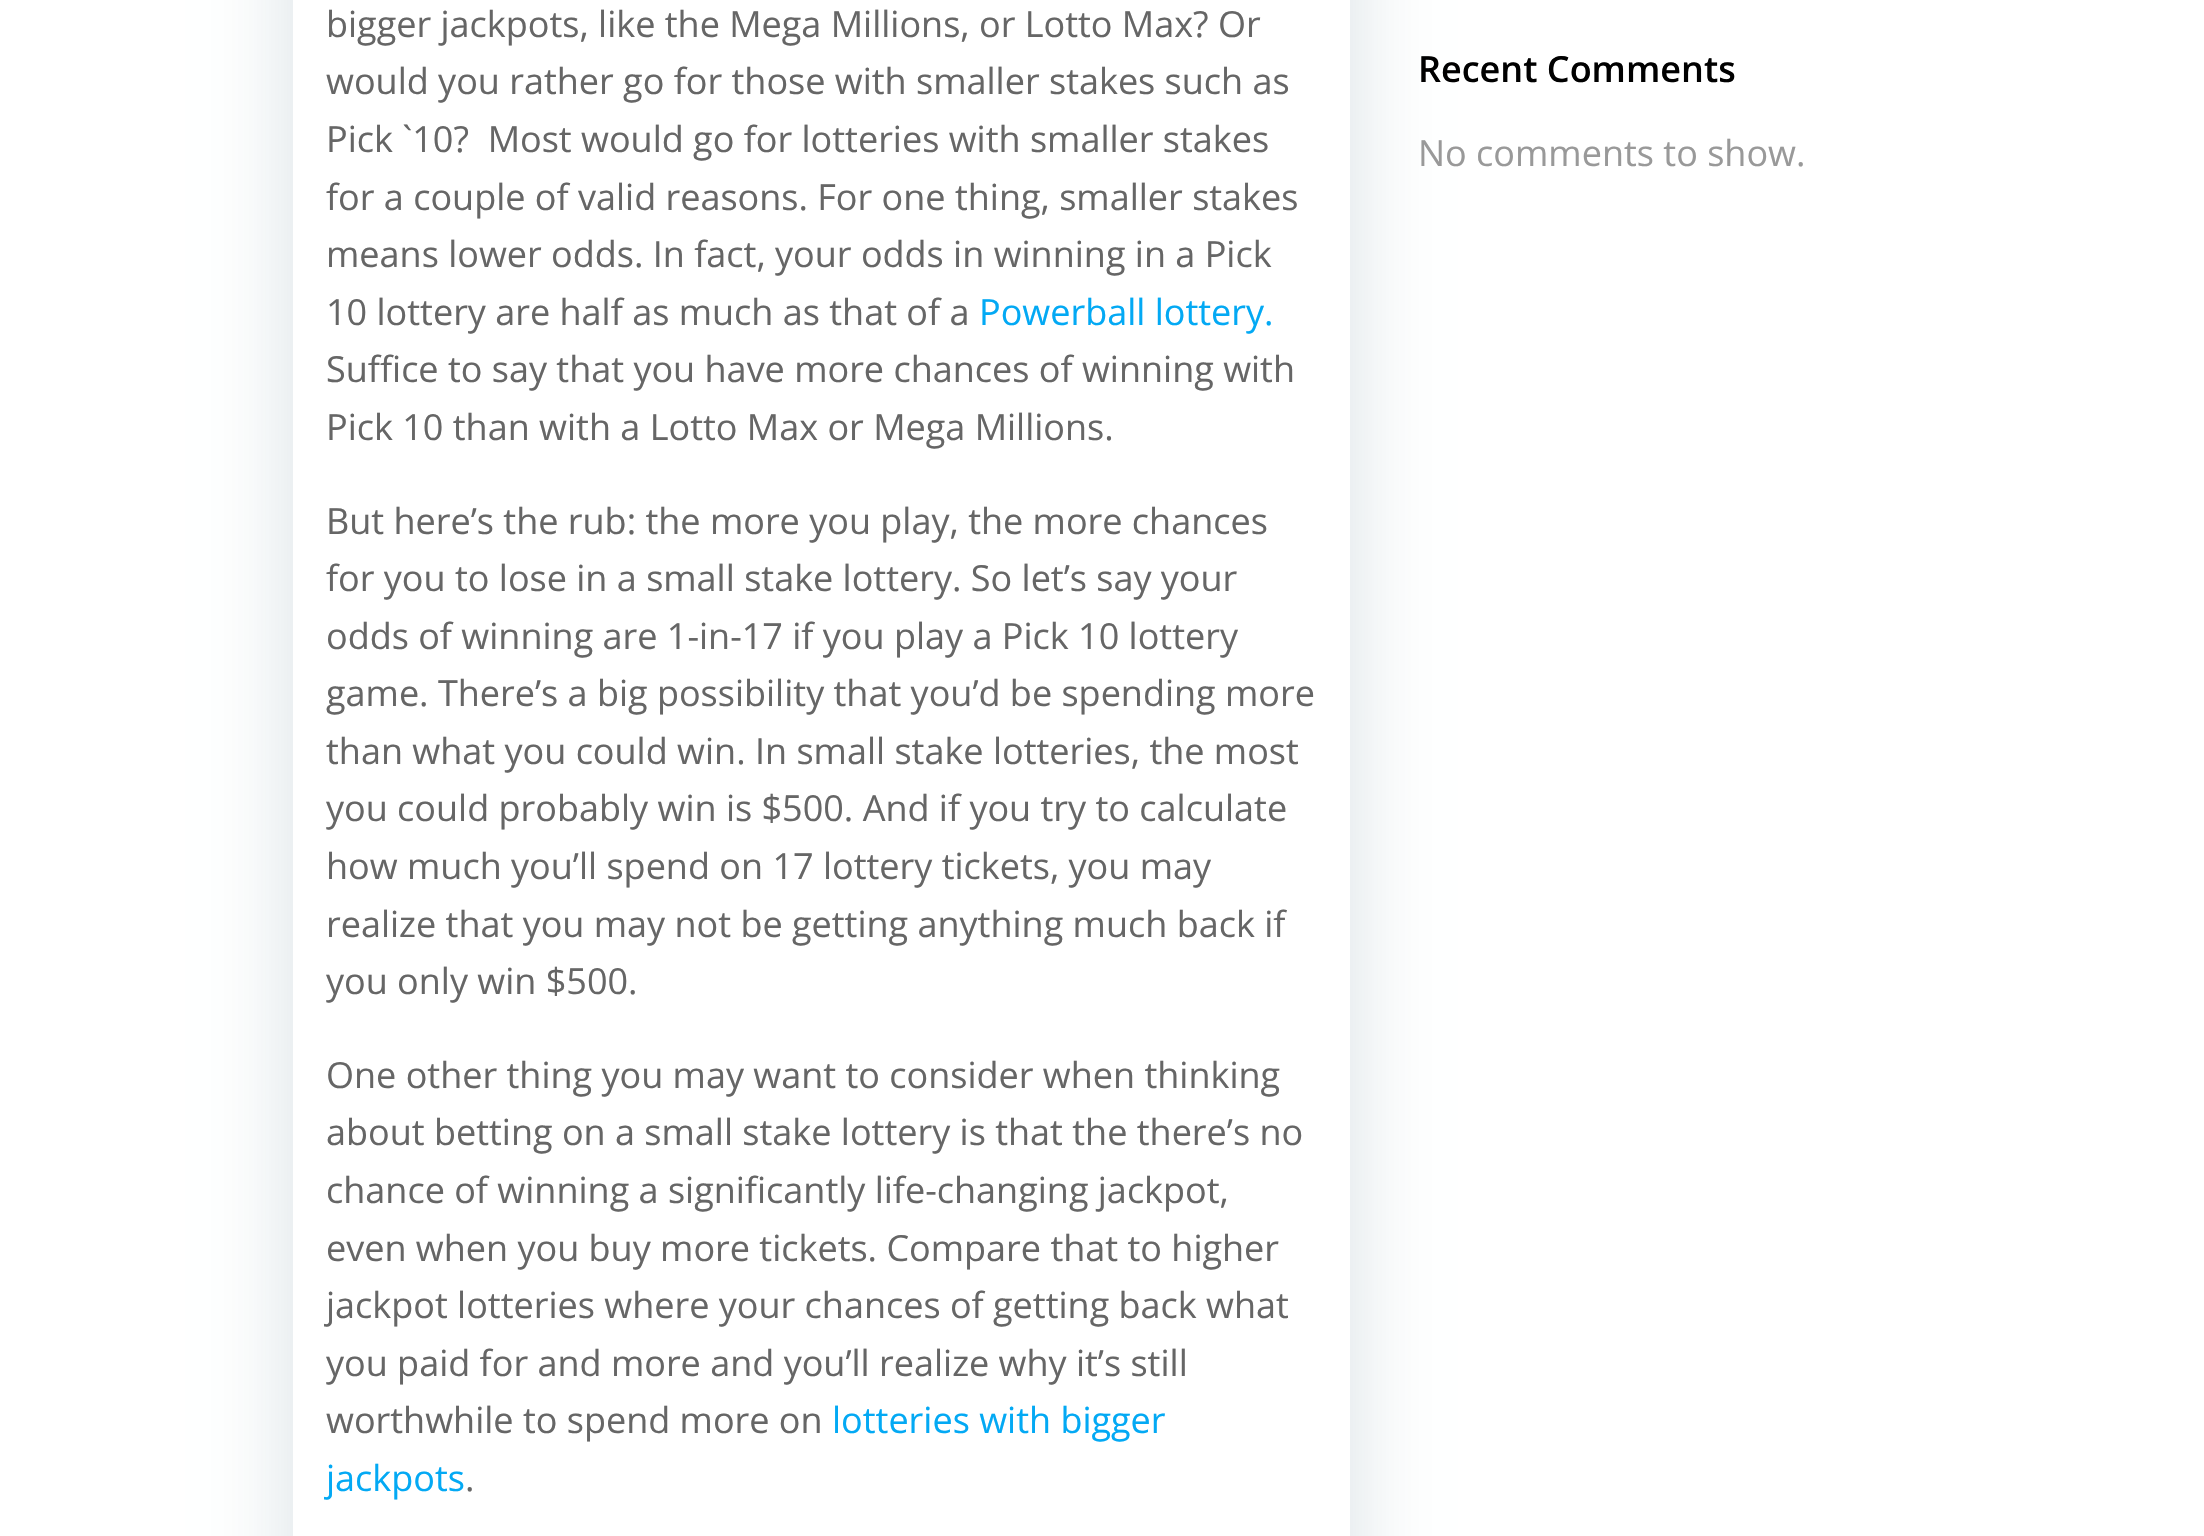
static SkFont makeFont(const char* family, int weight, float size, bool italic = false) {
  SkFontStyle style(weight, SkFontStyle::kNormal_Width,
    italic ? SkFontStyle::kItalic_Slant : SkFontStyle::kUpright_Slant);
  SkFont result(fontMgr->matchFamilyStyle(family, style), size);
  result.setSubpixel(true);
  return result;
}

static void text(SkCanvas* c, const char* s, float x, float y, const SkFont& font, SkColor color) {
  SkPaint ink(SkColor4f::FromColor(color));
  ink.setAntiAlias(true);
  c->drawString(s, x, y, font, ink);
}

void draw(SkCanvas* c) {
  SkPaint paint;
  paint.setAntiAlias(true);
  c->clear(0xffffffff);
  c->save();
  c->clipPath(SkPathBuilder(SkPathFillType::kEvenOdd).moveTo(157, 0).lineTo(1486, 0).lineTo(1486, 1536).lineTo(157, 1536).close().moveTo(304, -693).lineTo(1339, -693).cubicTo(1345, -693, 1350, -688, 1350, -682).lineTo(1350, 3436).cubicTo(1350, 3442, 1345, 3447, 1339, 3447).lineTo(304, 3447).cubicTo(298, 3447, 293, 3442, 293, 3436).lineTo(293, -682).cubicTo(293, -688, 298, -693, 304, -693).close().detach(), true);
  paint.setColor(0x2601334a);
  paint.setMaskFilter(SkMaskFilter::MakeBlur(kNormal_SkBlurStyle, 45));
  c->drawRoundRect(SkRect::MakeLTRB(293, -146, 1350, 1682), 11, 11, paint);
  paint.setMaskFilter(nullptr);
  c->restore();
  SkFont face1 = makeFont("Open Sans", 400, 36);
  text(c, "bigger jackpots, like the Mega Millions, or Lotto Max? Or", 326, 37, face1, 0xff666666);
  text(c, "would you rather go for those with smaller stakes such as", 326, 94, face1, 0xff666666);
  text(c, "Pick `10?  Most would go for lotteries with smaller stakes", 326, 152, face1, 0xff666666);
  text(c, "for a couple of valid reasons. For one thing, smaller stakes", 326, 210, face1, 0xff666666);
  text(c, "means lower odds. In fact, your odds in winning in a Pick", 326, 267, face1, 0xff666666);
  text(c, "10 lottery are half as much as that of a", 326, 325, face1, 0xff666666);
  text(c, "Powerball lottery.", 979, 325, face1, 0xff03a9f4);
  text(c, "Suffice to say that you have more chances of winning with", 326, 382, face1, 0xff666666);
  text(c, "Pick 10 than with a Lotto Max or Mega Millions.", 326, 440, face1, 0xff666666);
  text(c, "But here’s the rub: the more you play, the more chances", 326, 534, face1, 0xff666666);
  text(c, "for you to lose in a small stake lottery. So let’s say your", 326, 591, face1, 0xff666666);
  text(c, "odds of winning are 1-in-17 if you play a Pick 10 lottery", 326, 649, face1, 0xff666666);
  text(c, "game. There’s a big possibility that you’d be spending more", 326, 706, face1, 0xff666666);
  text(c, "than what you could win. In small stake lotteries, the most", 326, 764, face1, 0xff666666);
  text(c, "you could probably win is $500. And if you try to calculate", 326, 821, face1, 0xff666666);
  text(c, "how much you’ll spend on 17 lottery tickets, you may", 326, 879, face1, 0xff666666);
  text(c, "realize that you may not be getting anything much back if", 326, 937, face1, 0xff666666);
  text(c, "you only win $500.", 326, 994, face1, 0xff666666);
  text(c, "One other thing you may want to consider when thinking", 326, 1088, face1, 0xff666666);
  text(c, "about betting on a small stake lottery is that the there’s no", 326, 1145, face1, 0xff666666);
  text(c, "chance of winning a significantly life-changing jackpot,", 326, 1203, face1, 0xff666666);
  text(c, "even when you buy more tickets. Compare that to higher", 326, 1261, face1, 0xff666666);
  text(c, "jackpot lotteries where your chances of getting back what", 326, 1318, face1, 0xff666666);
  text(c, "you paid for and more and you’ll realize why it’s still", 326, 1376, face1, 0xff666666);
  text(c, "worthwhile to spend more on", 326, 1433, face1, 0xff666666);
  text(c, "lotteries with bigger", 832, 1433, face1, 0xff03a9f4);
  text(c, "jackpots", 326, 1491, face1, 0xff03a9f4);
  text(c, ".", 465, 1491, face1, 0xff666666);
  SkFont face2 = makeFont("Open Sans", 600, 36);
  text(c, "Recent Comments", 1418, 82, face2, 0xff000000);
  text(c, "No comments to show.", 1418, 166, face1, 0xff999999);
}
